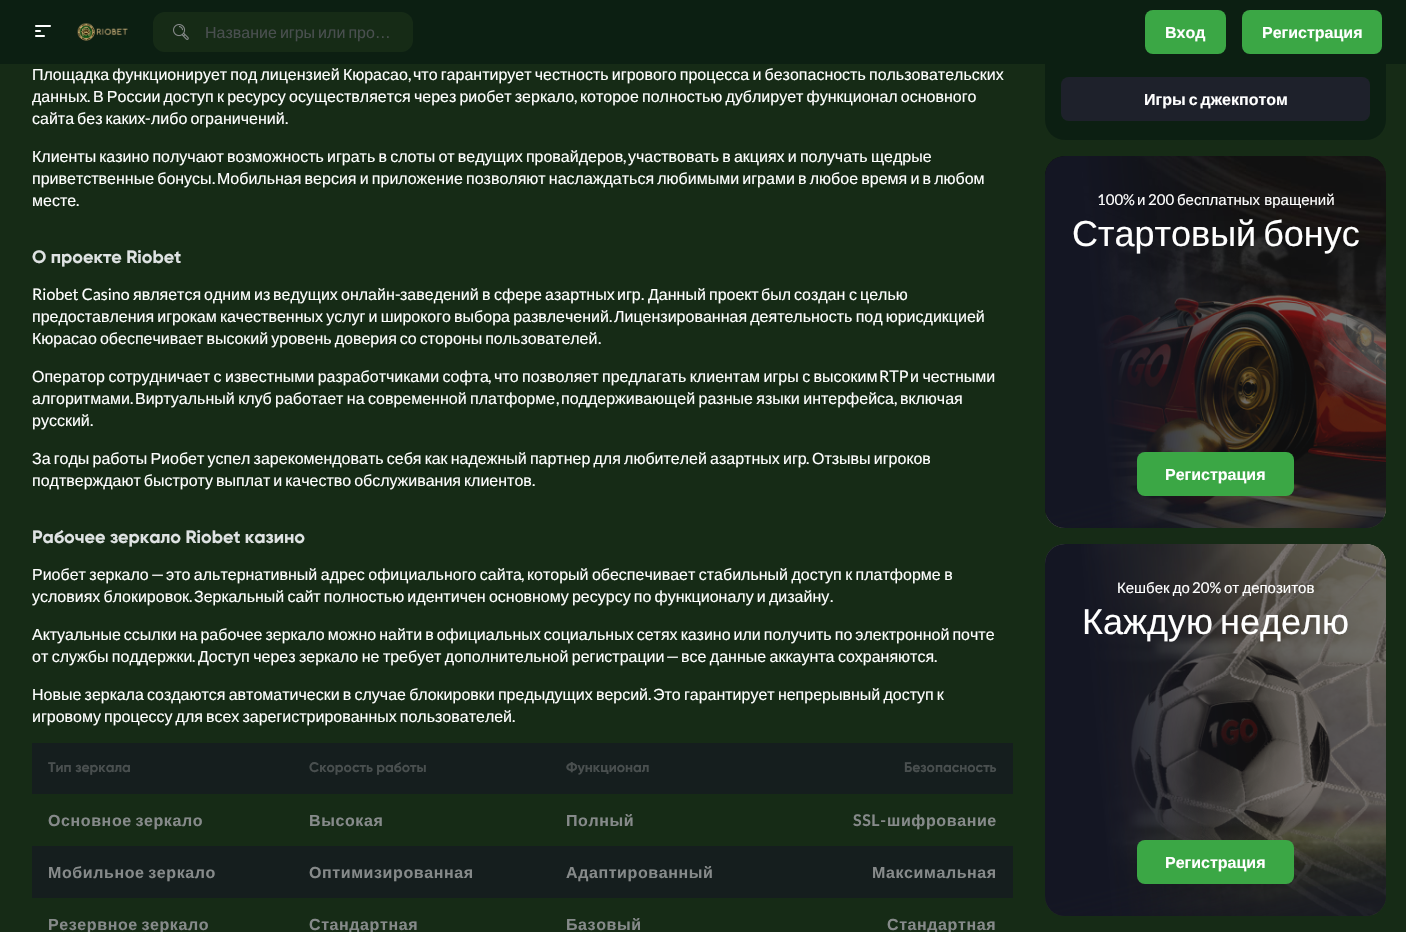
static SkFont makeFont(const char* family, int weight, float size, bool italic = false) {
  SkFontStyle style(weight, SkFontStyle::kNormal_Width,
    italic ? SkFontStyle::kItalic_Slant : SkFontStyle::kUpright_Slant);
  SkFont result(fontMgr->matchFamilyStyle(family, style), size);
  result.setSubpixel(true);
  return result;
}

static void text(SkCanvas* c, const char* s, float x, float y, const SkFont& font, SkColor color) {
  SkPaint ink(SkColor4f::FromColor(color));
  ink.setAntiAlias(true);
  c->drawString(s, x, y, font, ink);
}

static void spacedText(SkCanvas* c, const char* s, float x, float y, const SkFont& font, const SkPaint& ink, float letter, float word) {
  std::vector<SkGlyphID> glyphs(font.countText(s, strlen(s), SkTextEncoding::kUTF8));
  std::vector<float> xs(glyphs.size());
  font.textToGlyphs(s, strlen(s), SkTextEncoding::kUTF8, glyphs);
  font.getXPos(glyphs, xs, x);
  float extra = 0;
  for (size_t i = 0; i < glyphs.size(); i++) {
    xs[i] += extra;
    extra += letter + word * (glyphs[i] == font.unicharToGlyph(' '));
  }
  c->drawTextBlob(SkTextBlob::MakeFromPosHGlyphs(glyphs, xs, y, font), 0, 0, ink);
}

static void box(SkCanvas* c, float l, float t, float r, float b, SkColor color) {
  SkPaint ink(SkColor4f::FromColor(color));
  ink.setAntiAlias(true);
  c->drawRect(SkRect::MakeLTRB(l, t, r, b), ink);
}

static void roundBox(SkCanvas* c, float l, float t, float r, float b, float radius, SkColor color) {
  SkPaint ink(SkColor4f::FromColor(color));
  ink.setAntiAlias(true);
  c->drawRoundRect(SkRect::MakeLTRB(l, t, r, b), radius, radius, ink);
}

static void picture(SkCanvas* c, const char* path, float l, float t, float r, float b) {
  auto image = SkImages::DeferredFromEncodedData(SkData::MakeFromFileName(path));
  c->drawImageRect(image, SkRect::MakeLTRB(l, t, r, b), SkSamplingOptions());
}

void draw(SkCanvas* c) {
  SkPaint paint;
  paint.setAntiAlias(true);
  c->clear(0xff162b16);
  roundBox(c, 1045, -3, 1386, 140, 20, 0xff0c1f12);
  box(c, 0, 0, 1406, 64, 0xff0c1f12);
  picture(c, "img_01.png", 35, 25, 51, 37);
  picture(c, "img_02.png", 77, 23, 128, 41);
  roundBox(c, 153, 12, 413, 52, 12, 0xff162b16);
  picture(c, "img_03.png", 173, 24, 189, 40);
  SkFont face1 = makeFont("Liberation Sans", 400, 16);
  paint.setColor(0xff494f4f);
  spacedText(c, "Название игры или про…", 205, 38, face1, paint, 0, -1.4f);
  roundBox(c, 1145, 10, 1226, 54, 8, 0xff3ba745);
  SkFont face2 = makeFont("Liberation Sans", 700, 16);
  text(c, "Вход", 1165, 38, face2, 0xffffffff);
  roundBox(c, 1242, 10, 1382, 54, 8, 0xff3ba745);
  text(c, "Регистрация", 1262, 38, face2, 0xffffffff);
  paint.setColor(0xffffffff);
  spacedText(c, "Площадка функционирует под лицензией Кюрасао", 32, 80, face1, paint, 0, -1.25f);
  SkFont face3 = makeFont("Lato", 400, 16);
  text(c, ",", 408, 80, face3, 0xffffffff);
  spacedText(c, "что гарантирует честность игрового процесса и безопасность пользовательских", 413, 80, face1, paint, 0, -1.25f);
  text(c, "данных", 32, 102, face1, 0xffffffff);
  text(c, ".", 87, 102, face3, 0xffffffff);
  spacedText(c, "В России доступ к ресурсу осуществляется через риобет зеркало", 93, 102, face1, paint, 0, -1.25f);
  text(c, ",", 574, 102, face3, 0xffffffff);
  spacedText(c, "которое полностью дублирует функционал основного", 580, 102, face1, paint, 0, -1.25f);
  spacedText(c, "сайта без каких", 32, 124, face1, paint, 0, -1.4f);
  text(c, "-", 145, 124, face3, 0xffffffff);
  spacedText(c, "либо ограничений", 151, 124, face1, paint, 0, -1.4f);
  text(c, ".", 285, 124, face3, 0xffffffff);
  spacedText(c, "Клиенты казино получают возможность играть в слоты от ведущих провайдеров", 32, 162, face1, paint, 0, -1.25f);
  text(c, ",", 623, 162, face3, 0xffffffff);
  spacedText(c, "участвовать в акциях и получать щедрые", 628, 162, face1, paint, 0, -1.25f);
  spacedText(c, "приветственные бонусы", 32, 184, face1, paint, 0, -1.25f);
  text(c, ".", 212, 184, face3, 0xffffffff);
  spacedText(c, "Мобильная версия и приложение позволяют наслаждаться любимыми играми в любое время и в любом", 217, 184, face1, paint, 0, -1.25f);
  text(c, "месте", 32, 206, face1, 0xffffffff);
  text(c, ".", 76, 206, face3, 0xffffffff);
  SkFont face4 = makeFont("Gilroy", 700, 18);
  text(c, "О проекте Riobet", 32, 263, face4, 0xffdfe3e3);
  text(c, "Riobet Casino", 32, 300, face3, 0xffffffff);
  text(c, "является", 133, 300, face1, 0xffffffff);
  text(c, "одним", 204, 300, face1, 0xffffffff);
  text(c, "из", 254, 300, face1, 0xffffffff);
  text(c, "ведущих", 273, 300, face1, 0xffffffff);
  text(c, "онлайн", 341, 300, face1, 0xffffffff);
  text(c, "-", 395, 300, face3, 0xffffffff);
  text(c, "заведений", 400, 300, face1, 0xffffffff);
  text(c, "в", 482, 300, face1, 0xffffffff);
  text(c, "сфере", 494, 300, face1, 0xffffffff);
  text(c, "азартных", 545, 300, face1, 0xffffffff);
  text(c, "игр", 617, 300, face1, 0xffffffff);
  text(c, "Данный", 648, 300, face1, 0xffffffff);
  text(c, "проект", 709, 300, face1, 0xffffffff);
  text(c, "был", 761, 300, face1, 0xffffffff);
  text(c, "создан", 794, 300, face1, 0xffffffff);
  text(c, "с", 849, 300, face1, 0xffffffff);
  text(c, "целью", 860, 300, face1, 0xffffffff);
  text(c, ".", 641, 300, face3, 0xffffffff);
  spacedText(c, "предоставления игрокам качественных услуг и широкого выбора развлечений", 32, 322, face1, paint, 0, -1.25f);
  text(c, ".", 609, 322, face3, 0xffffffff);
  spacedText(c, "Лицензированная деятельность под юрисдикцией", 614, 322, face1, paint, 0, -1.25f);
  spacedText(c, "Кюрасао обеспечивает высокий уровень доверия со стороны пользователей", 32, 344, face1, paint, 0, -1.4f);
  text(c, ".", 598, 344, face3, 0xffffffff);
  spacedText(c, "Оператор сотрудничает с известными разработчиками софта", 32, 382, face1, paint, 0, -1);
  text(c, ",", 488, 382, face3, 0xffffffff);
  spacedText(c, "что позволяет предлагать клиентам игры с высоким", 494, 382, face1, paint, 0, -1);
  text(c, "RTP", 879, 382, face3, 0xffffffff);
  spacedText(c, "и честными", 910, 382, face1, paint, 0, -1);
  text(c, "алгоритмами", 32, 404, face1, 0xffffffff);
  text(c, ".", 130, 404, face3, 0xffffffff);
  spacedText(c, "Виртуальный клуб работает на современной платформе", 135, 404, face1, paint, 0, -1);
  text(c, ",", 556, 404, face3, 0xffffffff);
  spacedText(c, "поддерживающей разные языки интерфейса", 561, 404, face1, paint, 0, -1);
  text(c, ",", 894, 404, face3, 0xffffffff);
  text(c, "включая", 900, 404, face1, 0xffffffff);
  text(c, "русский", 32, 426, face1, 0xffffffff);
  text(c, ".", 90, 426, face3, 0xffffffff);
  spacedText(c, "За годы работы Риобет успел зарекомендовать себя как надежный партнер для любителей азартных игр", 32, 464, face1, paint, 0, -1.25f);
  text(c, ".", 806, 464, face3, 0xffffffff);
  spacedText(c, "Отзывы игроков", 812, 464, face1, paint, 0, -1.25f);
  spacedText(c, "подтверждают быстроту выплат и качество обслуживания клиентов", 32, 486, face1, paint, 0, -1.4f);
  text(c, ".", 532, 486, face3, 0xffffffff);
  text(c, "Рабочее зеркало Riobet казино", 32, 543, face4, 0xffdfe3e3);
  spacedText(c, "Риобет зеркало", 32, 580, face1, paint, 0, -1);
  text(c, "—", 151, 580, face3, 0xffffffff);
  spacedText(c, "это альтернативный адрес официального сайта", 166, 580, face1, paint, 0, -1);
  spacedText(c, "который обеспечивает стабильный доступ к платформе в", 527, 580, face1, paint, 0, -1);
  text(c, ",", 521, 580, face3, 0xffffffff);
  spacedText(c, "условиях блокировок", 32, 602, face1, paint, 0, -1.25f);
  text(c, ".", 189, 602, face3, 0xffffffff);
  spacedText(c, "Зеркальный сайт полностью идентичен основному ресурсу по функционалу и дизайну", 194, 602, face1, paint, 0, -1.25f);
  text(c, ".", 830, 602, face3, 0xffffffff);
  spacedText(c, "Актуальные ссылки на рабочее зеркало можно найти в официальных социальных сетях казино или получить по электронной почте", 32, 640, face1, paint, 0, -1.4f);
  spacedText(c, "от службы поддержки", 32, 662, face1, paint, 0, -1);
  spacedText(c, "Доступ через зеркало не требует дополнительной регистрации", 198, 662, face1, paint, 0, -1);
  text(c, "—", 666, 662, face3, 0xffffffff);
  spacedText(c, "все данные аккаунта сохраняются", 681, 662, face1, paint, 0, -1);
  text(c, ".", 192, 662, face3, 0xffffffff);
  text(c, ".", 934, 662, face3, 0xffffffff);
  spacedText(c, "Новые зеркала создаются автоматически в случае блокировки предыдущих версий", 32, 700, face1, paint, 0, -1.25f);
  text(c, ".", 648, 700, face3, 0xffffffff);
  spacedText(c, "Это гарантирует непрерывный доступ к", 653, 700, face1, paint, 0, -1.25f);
  spacedText(c, "игровому процессу для всех зарегистрированных пользователей", 32, 722, face1, paint, 0, -1.4f);
  text(c, ".", 512, 722, face3, 0xffffffff);
  box(c, 32, 743, 1013, 794, 0xff151e1e);
  SkFont face5 = makeFont("Gilroy", 700, 14);
  text(c, "Тип зеркала", 48, 772, face5, 0xff494f4f);
  text(c, "Скорость работы", 309, 772, face5, 0xff494f4f);
  text(c, "Функционал", 566, 772, face5, 0xff494f4f);
  text(c, "Безопасность", 904, 772, face5, 0xff494f4f);
  paint.setColor(0xff868a8a);
  spacedText(c, "Основное зеркало", 48, 826, face2, paint, 0.6f, -1.4f);
  spacedText(c, "Высокая", 309, 826, face2, paint, 0.6f, 0);
  spacedText(c, "Полный", 566, 826, face2, paint, 0.6f, 0);
  SkFont face6 = makeFont("Lato", 700, 16);
  spacedText(c, "SSL-", 853, 826, face6, paint, 0.6f, 0);
  spacedText(c, "шифрование", 887, 826, face2, paint, 0.6f, 0);
  box(c, 32, 846, 1013, 898, 0xff151e1e);
  spacedText(c, "Мобильное зеркало", 48, 878, face2, paint, 0.6f, -1.4f);
  spacedText(c, "Оптимизированная", 309, 878, face2, paint, 0.6f, 0);
  spacedText(c, "Адаптированный", 566, 878, face2, paint, 0.6f, 0);
  spacedText(c, "Максимальная", 872, 878, face2, paint, 0.6f, 0);
  spacedText(c, "Резервное зеркало", 48, 930, face2, paint, 0.6f, -1.4f);
  spacedText(c, "Стандартная", 309, 930, face2, paint, 0.6f, 0);
  spacedText(c, "Базовый", 566, 930, face2, paint, 0.6f, 0);
  spacedText(c, "Стандартная", 887, 930, face2, paint, 0.6f, 0);
  roundBox(c, 1061, 77, 1370, 121, 8, 0xff1e212b);
  paint.setColor(0xffffffff);
  spacedText(c, "Игры с джекпотом", 1144, 105, face2, paint, 0, -1.4f);
  picture(c, "img_04.png", 1045, 156, 1386, 528);
  picture(c, "img_05.png", 1089, 221, 1386, 528);
  {
    const SkColor colors[] = {0xff141623, 0x96181818};
    const float stops[] = {0.18f, 0.61f};
    const SkPoint ends[] = {{1030, 358}, {1401, 326}};
    paint.setShader(SkGradientShader::MakeLinear(ends, colors, stops, 2, SkTileMode::kClamp));
    paint.setAlpha(255);
  }
  c->drawRoundRect(SkRect::MakeLTRB(1045, 156, 1386, 528), 20, 20, paint);
  {
    const SkColor colors[] = {0xff141623, 0x00141623};
    const float stops[] = {0, 0.28f};
    const SkPoint ends[] = {{1279, 597}, {1162, 127}};
    paint.setShader(SkGradientShader::MakeLinear(ends, colors, stops, 2, SkTileMode::kClamp));
    paint.setAlpha(255);
  }
  c->drawRoundRect(SkRect::MakeLTRB(1045, 156, 1386, 528), 20, 20, paint);
  SkFont face7 = makeFont("Lato", 400, 15);
  text(c, "100%", 1097, 205, face7, 0xffffffff);
  SkFont face8 = makeFont("Liberation Sans", 400, 15);
  text(c, "и", 1137, 205, face8, 0xffffffff);
  text(c, "200", 1148, 205, face7, 0xffffffff);
  text(c, "бесплатных вращений", 1177, 205, face8, 0xffffffff);
  SkFont face9 = makeFont("Liberation Sans", 400, 36);
  paint.setShader(nullptr);
  paint.setColor(0xffffffff);
  spacedText(c, "Стартовый бонус", 1072, 246, face9, paint, 0, -3);
  roundBox(c, 1137, 452, 1294, 496, 8, 0xff3ba745);
  text(c, "Регистрация", 1165, 480, face2, 0xffffffff);
  picture(c, "img_06.png", 1045, 544, 1386, 916);
  picture(c, "img_07.png", 1130, 544, 1386, 916);
  {
    const SkColor colors[] = {0xff141623, 0x96181818};
    const float stops[] = {0.18f, 0.61f};
    const SkPoint ends[] = {{1030, 746}, {1401, 714}};
    paint.setShader(SkGradientShader::MakeLinear(ends, colors, stops, 2, SkTileMode::kClamp));
    paint.setAlpha(255);
  }
  c->drawRoundRect(SkRect::MakeLTRB(1045, 544, 1386, 916), 20, 20, paint);
  {
    const SkColor colors[] = {0xff141623, 0x00141623};
    const float stops[] = {0, 0.28f};
    const SkPoint ends[] = {{1279, 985}, {1162, 515}};
    paint.setShader(SkGradientShader::MakeLinear(ends, colors, stops, 2, SkTileMode::kClamp));
    paint.setAlpha(255);
  }
  c->drawRoundRect(SkRect::MakeLTRB(1045, 544, 1386, 916), 20, 20, paint);
  paint.setShader(nullptr);
  paint.setColor(0xffffffff);
  spacedText(c, "Кешбек до", 1117, 593, face8, paint, 0, -1);
  text(c, "20%", 1192, 593, face7, 0xffffffff);
  spacedText(c, "от депозитов", 1224, 593, face8, paint, 0, -1);
  spacedText(c, "Каждую неделю", 1082, 634, face9, paint, 0, -3);
  roundBox(c, 1137, 840, 1294, 884, 8, 0xff3ba745);
  text(c, "Регистрация", 1165, 868, face2, 0xffffffff);
}
